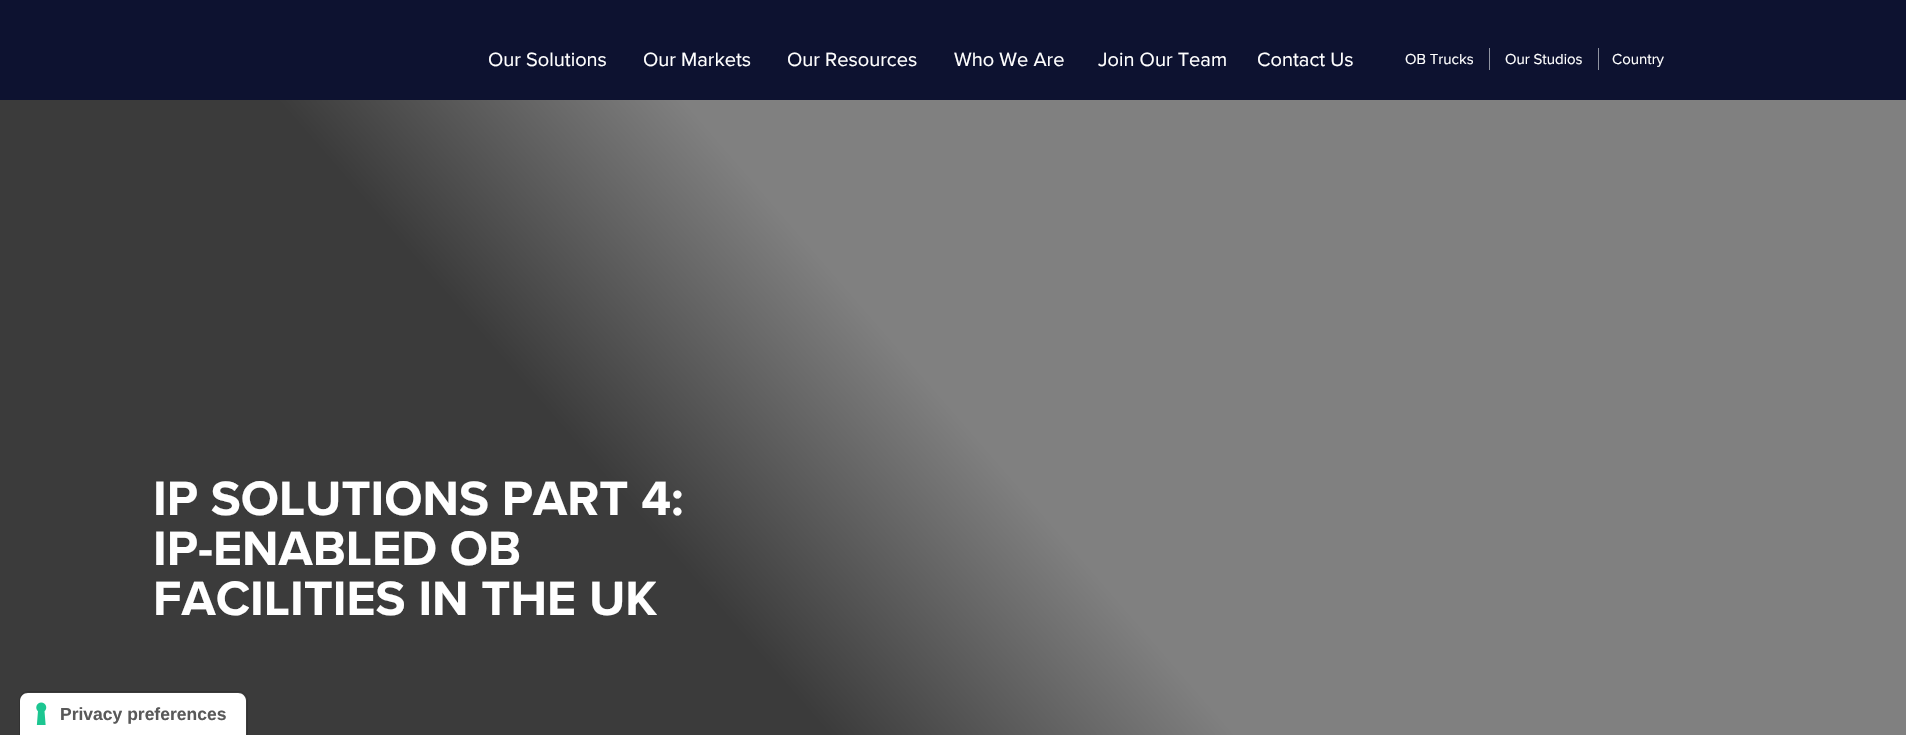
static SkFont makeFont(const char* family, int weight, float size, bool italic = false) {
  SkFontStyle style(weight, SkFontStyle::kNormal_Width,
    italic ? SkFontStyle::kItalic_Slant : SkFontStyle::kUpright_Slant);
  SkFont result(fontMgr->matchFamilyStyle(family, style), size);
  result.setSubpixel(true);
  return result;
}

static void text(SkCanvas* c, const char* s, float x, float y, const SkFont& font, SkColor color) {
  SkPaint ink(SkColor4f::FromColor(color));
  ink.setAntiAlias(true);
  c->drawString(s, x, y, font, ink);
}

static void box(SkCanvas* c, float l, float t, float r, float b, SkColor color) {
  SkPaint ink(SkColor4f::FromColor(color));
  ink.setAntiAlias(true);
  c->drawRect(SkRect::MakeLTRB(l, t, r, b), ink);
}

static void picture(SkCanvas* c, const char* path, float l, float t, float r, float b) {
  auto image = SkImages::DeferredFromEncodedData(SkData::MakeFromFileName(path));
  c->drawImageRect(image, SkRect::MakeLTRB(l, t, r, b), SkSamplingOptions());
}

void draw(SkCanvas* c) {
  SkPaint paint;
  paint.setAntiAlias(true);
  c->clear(0xffffffff);
  box(c, 0, 0, 1906, 100, 0xff0d1230);
  SkFont face1 = makeFont("Proxima Nova", 400, 20);
  text(c, "Our Solutions", 488, 66, face1, 0xffffffff);
  text(c, "Our Markets", 643, 66, face1, 0xffffffff);
  text(c, "Our Resources", 787, 66, face1, 0xffffffff);
  text(c, "Who We Are", 954, 66, face1, 0xffffffff);
  text(c, "Join Our Team", 1098, 66, face1, 0xffffffff);
  text(c, "Contact Us", 1257, 66, face1, 0xffffffff);
  box(c, 1489, 48, 1490, 70, 0xff9094a2);
  SkFont face2 = makeFont("Proxima Nova", 400, 15);
  text(c, "OB Trucks", 1405, 64, face2, 0xffffffff);
  box(c, 1598, 48, 1599, 70, 0xff9094a2);
  text(c, "Our Studios", 1505, 64, face2, 0xffffffff);
  text(c, "Country", 1612, 64, face2, 0xffffffff);
  {
    const SkColor colors[] = {0xff3b3b3b, 0xff808080};
    const float stops[] = {0.36f, 0.52f};
    const SkPoint ends[] = {{228, 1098}, {1678, -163}};
    paint.setShader(SkGradientShader::MakeLinear(ends, colors, stops, 2, SkTileMode::kClamp));
    paint.setAlpha(255);
  }
  c->drawRect(SkRect::MakeLTRB(0, 100, 1906, 735), paint);
  SkFont face3 = makeFont("Proxima Nova", 700, 50);
  text(c, "IP SOLUTIONS PART 4:", 153, 515, face3, 0xffffffff);
  text(c, "IP-ENABLED OB", 153, 565, face3, 0xffffffff);
  text(c, "FACILITIES IN THE UK", 153, 615, face3, 0xffffffff);
  paint.setStyle(SkPaint::kStroke_Style);
  paint.setStrokeWidth(1);
  paint.setShader(nullptr);
  paint.setColor(0xff323232);
  c->drawPath(SkPathBuilder().moveTo(28, 691.5f).lineTo(239, 691.5f).cubicTo(243.5f, 691.5f, 247.5f, 695.5f, 247.5f, 700).lineTo(247.5f, 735.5f).lineTo(19.5f, 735.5f).lineTo(19.5f, 700).cubicTo(19.5f, 695.5f, 23.5f, 691.5f, 28, 691.5f).close().detach(), paint);
  paint.setStyle(SkPaint::kFill_Style);
  paint.setColor(0xffffffff);
  c->drawPath(SkPathBuilder().moveTo(28, 693).lineTo(238, 693).cubicTo(242.5f, 693, 246, 696.5f, 246, 701).lineTo(246, 735).lineTo(20, 735).lineTo(20, 701).cubicTo(20, 696.5f, 23.5f, 693, 28, 693).close().detach(), paint);
  picture(c, "img_01.png", 36, 702, 47, 725);
  SkFont face4 = makeFont("Liberation Sans", 700, 17.5f);
  text(c, "Privacy preferences", 60, 720, face4, 0xff595959);
}
